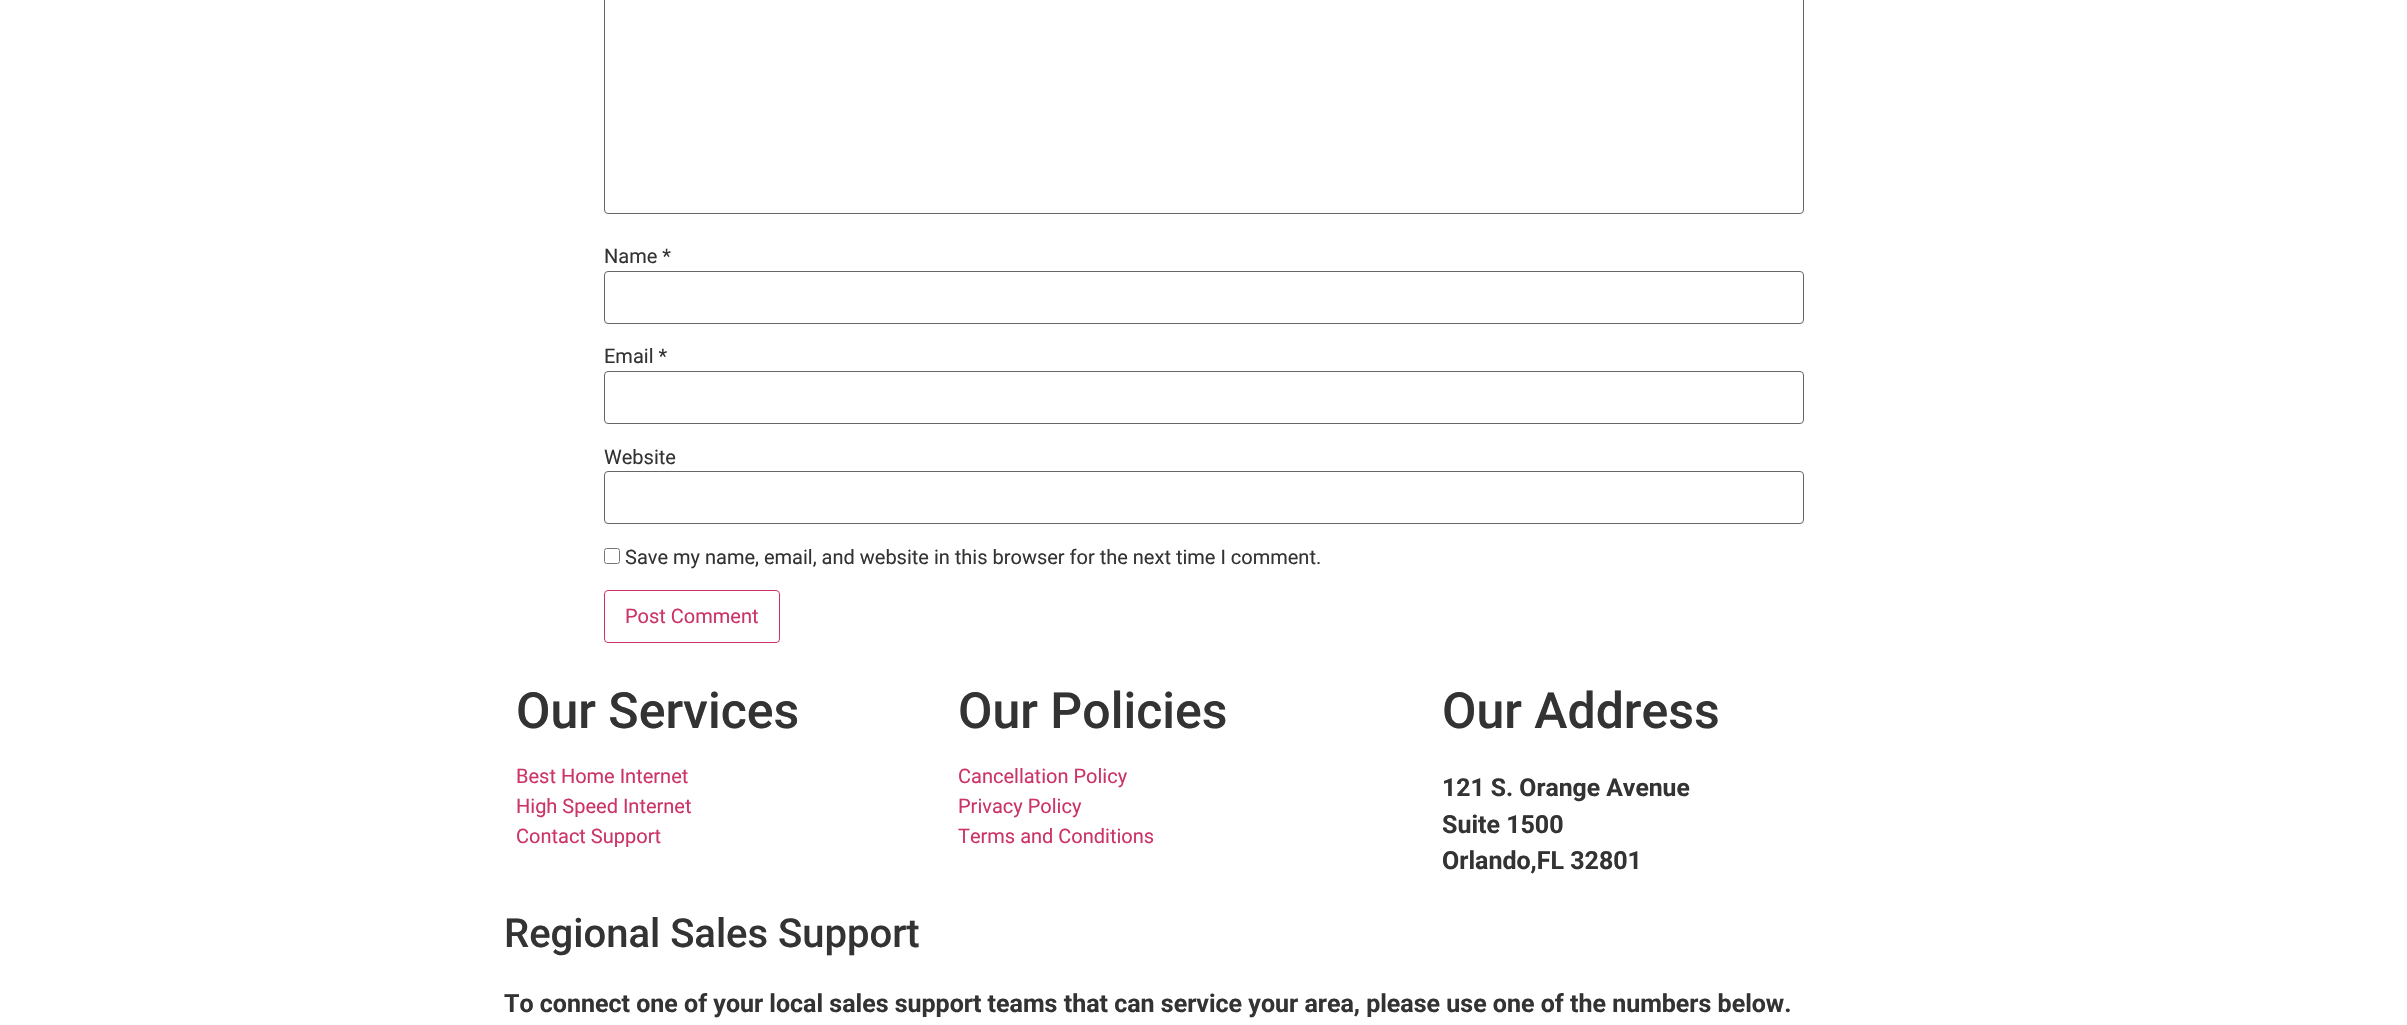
static SkFont makeFont(const char* family, int weight, float size, bool italic = false) {
  SkFontStyle style(weight, SkFontStyle::kNormal_Width,
    italic ? SkFontStyle::kItalic_Slant : SkFontStyle::kUpright_Slant);
  SkFont result(fontMgr->matchFamilyStyle(family, style), size);
  result.setSubpixel(true);
  return result;
}

static void text(SkCanvas* c, const char* s, float x, float y, const SkFont& font, SkColor color) {
  SkPaint ink(SkColor4f::FromColor(color));
  ink.setAntiAlias(true);
  c->drawString(s, x, y, font, ink);
}

void draw(SkCanvas* c) {
  SkPaint paint;
  paint.setAntiAlias(true);
  c->clear(0xffffffff);
  paint.setStyle(SkPaint::kStroke_Style);
  paint.setStrokeWidth(1);
  paint.setColor(0xff666666);
  c->drawRoundRect(SkRect::MakeLTRB(604.5f, -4.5f, 1803.5f, 213.5f), 3.5f, 3.5f, paint);
  SkFont face1 = makeFont("Roboto", 400, 20);
  text(c, "Name *", 604, 263, face1, 0xff333333);
  c->drawRoundRect(SkRect::MakeLTRB(604.5f, 271.5f, 1803.5f, 323.5f), 3.5f, 3.5f, paint);
  text(c, "Email *", 604, 363, face1, 0xff333333);
  c->drawRoundRect(SkRect::MakeLTRB(604.5f, 371.5f, 1803.5f, 423.5f), 3.5f, 3.5f, paint);
  text(c, "Website", 604, 464, face1, 0xff333333);
  c->drawRoundRect(SkRect::MakeLTRB(604.5f, 471.5f, 1803.5f, 523.5f), 3.5f, 3.5f, paint);
  paint.setColor(0xff767676);
  c->drawRoundRect(SkRect::MakeLTRB(604.5f, 548.5f, 619.5f, 563.5f), 2, 2, paint);
  text(c, "Save my name, email, and website in this browser for the next time I comment.", 625, 564, face1, 0xff333333);
  paint.setColor(0xffcc3366);
  c->drawRoundRect(SkRect::MakeLTRB(604.5f, 590.5f, 779.5f, 642.5f), 3.5f, 3.5f, paint);
  text(c, "Post Comment", 625, 623, face1, 0xffcc3366);
  SkFont face2 = makeFont("Roboto", 500, 50);
  text(c, "Our Services", 516, 728, face2, 0xff333333);
  text(c, "Best Home Internet", 516, 783, face1, 0xffcc3366);
  text(c, "High Speed Internet", 516, 813, face1, 0xffcc3366);
  text(c, "Contact Support", 516, 843, face1, 0xffcc3366);
  text(c, "Our Policies", 958, 728, face2, 0xff333333);
  text(c, "Cancellation Policy", 958, 783, face1, 0xffcc3366);
  text(c, "Privacy Policy", 958, 813, face1, 0xffcc3366);
  text(c, "Terms and Conditions", 958, 843, face1, 0xffcc3366);
  text(c, "Our Address", 1442, 728, face2, 0xff333333);
  SkFont face3 = makeFont("Roboto", 700, 24.75f);
  text(c, "121 S. Orange Avenue", 1442, 796, face3, 0xff333333);
  SkFont face4 = makeFont("Roboto", 700, 25);
  text(c, "Suite 1500", 1442, 833, face4, 0xff333333);
  text(c, "Orlando,FL 32801", 1442, 869, face4, 0xff333333);
  SkFont face5 = makeFont("Roboto", 500, 40);
  text(c, "Regional Sales Support", 504, 947, face5, 0xff333333);
  text(c, "To connect one of your local sales support teams that can service your area, please use one of the numbers below.", 504, 1012, face4, 0xff333333);
}
